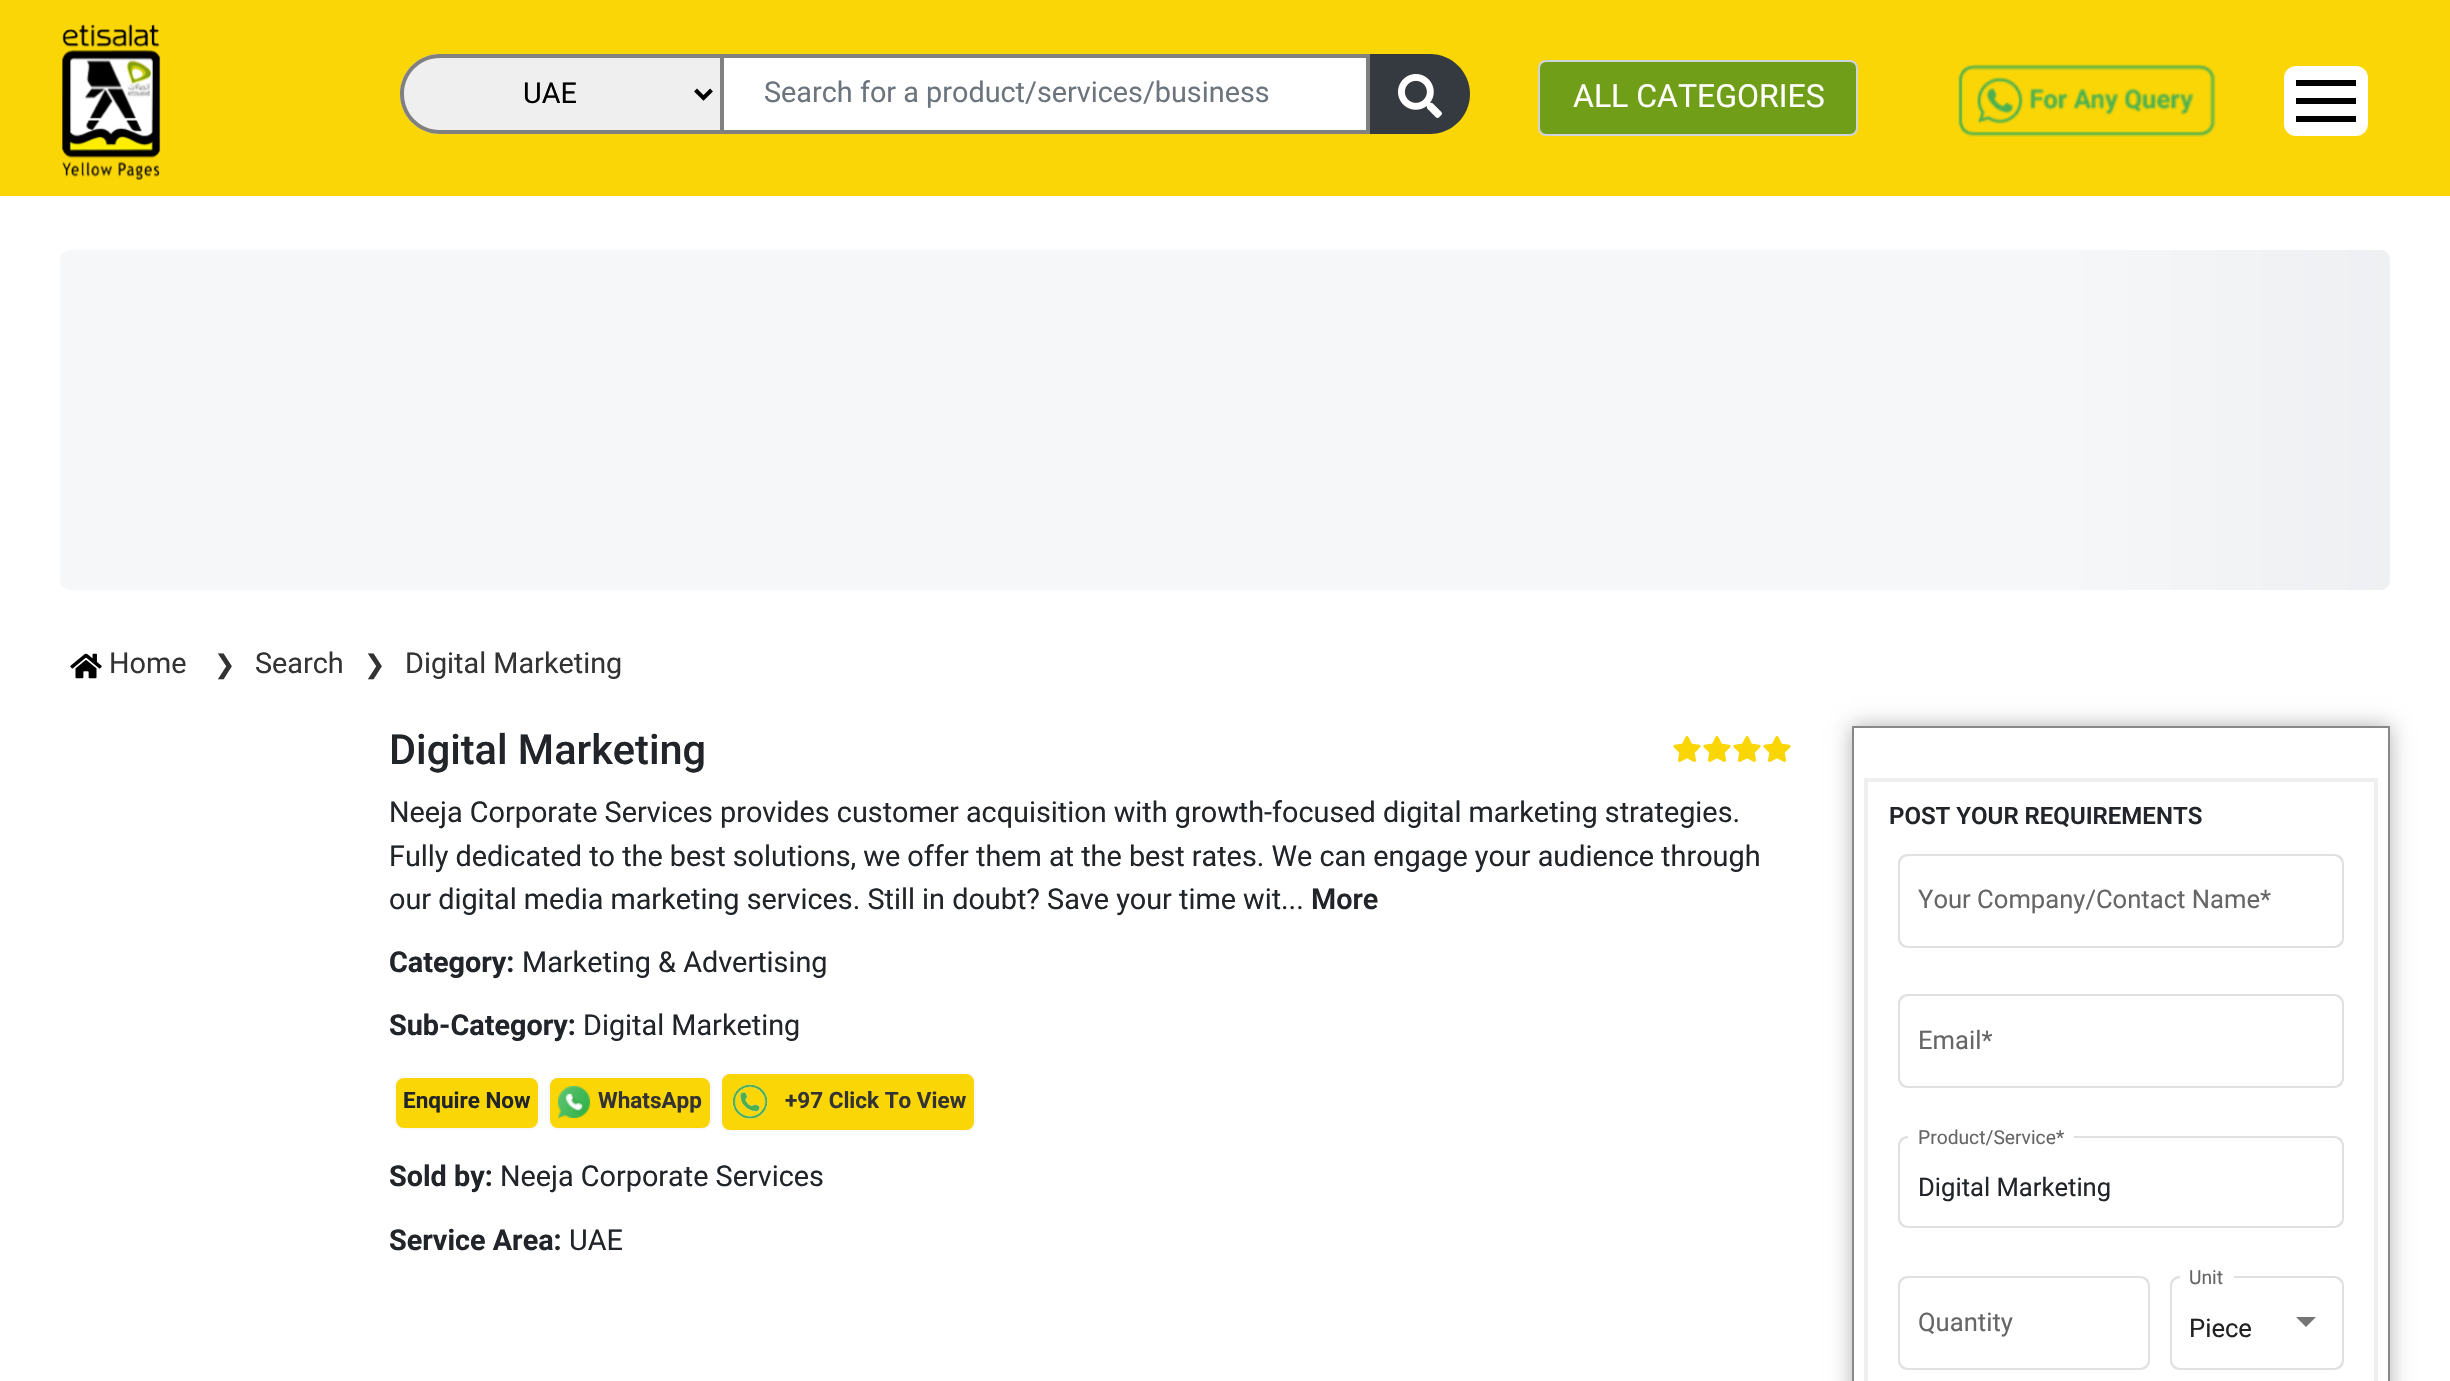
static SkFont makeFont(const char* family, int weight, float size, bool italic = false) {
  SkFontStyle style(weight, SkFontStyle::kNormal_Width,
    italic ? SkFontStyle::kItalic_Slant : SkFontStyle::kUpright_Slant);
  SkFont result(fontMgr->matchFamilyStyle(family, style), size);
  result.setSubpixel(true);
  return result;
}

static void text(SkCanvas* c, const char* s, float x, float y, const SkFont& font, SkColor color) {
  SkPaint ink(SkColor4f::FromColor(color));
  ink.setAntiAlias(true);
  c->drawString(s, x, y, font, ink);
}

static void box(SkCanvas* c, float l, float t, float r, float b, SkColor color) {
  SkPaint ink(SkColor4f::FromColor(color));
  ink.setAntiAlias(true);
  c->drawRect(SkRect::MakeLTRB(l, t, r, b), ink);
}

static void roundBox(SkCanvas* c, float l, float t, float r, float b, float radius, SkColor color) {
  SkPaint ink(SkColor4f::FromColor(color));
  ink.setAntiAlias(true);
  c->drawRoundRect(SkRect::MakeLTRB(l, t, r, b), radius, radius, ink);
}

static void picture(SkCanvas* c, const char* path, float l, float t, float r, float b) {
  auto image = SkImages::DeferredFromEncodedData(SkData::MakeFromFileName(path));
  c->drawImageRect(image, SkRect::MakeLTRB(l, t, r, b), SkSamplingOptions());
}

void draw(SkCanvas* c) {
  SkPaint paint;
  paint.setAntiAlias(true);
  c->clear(0xffffffff);
  box(c, 0, 0, 2450, 196, 0xfffad606);
  picture(c, "img_01.png", 62, 24, 161, 180);
  paint.setColor(0xffefefef);
  c->drawPath(SkPathBuilder().moveTo(440, 54).lineTo(720, 54).lineTo(720, 134).lineTo(440, 134).cubicTo(418, 134, 400, 116, 400, 94).cubicTo(400, 72, 418, 54, 440, 54).close().detach(), paint);
  paint.setColor(0xff808080);
  c->drawPath(SkPathBuilder(SkPathFillType::kEvenOdd).moveTo(440, 54).lineTo(720, 54).lineTo(720, 134).lineTo(440, 134).cubicTo(418, 134, 400, 116, 400, 94).cubicTo(400, 72, 418, 54, 440, 54).close().moveTo(440, 58).lineTo(720, 58).lineTo(720, 130).lineTo(440, 130).cubicTo(420, 130, 404, 114, 404, 94).cubicTo(404, 74, 420, 58, 440, 58).close().detach(), paint);
  paint.setStyle(SkPaint::kStroke_Style);
  paint.setStrokeWidth(4);
  paint.setColor(0xff000000);
  c->drawPath(SkPathBuilder().moveTo(695.5f, 90).lineTo(703.5f, 98).lineTo(711.5f, 90).detach(), paint);
  SkFont face1 = makeFont("Roboto", 400, 28.8f);
  text(c, "UAE", 523, 103, face1, 0xff000000);
  paint.setStyle(SkPaint::kFill_Style);
  paint.setColor(0xffffffff);
  c->drawRect(SkRect::MakeLTRB(722, 56, 1368, 132), paint);
  paint.setStyle(SkPaint::kStroke_Style);
  paint.setColor(0xff808080);
  c->drawRect(SkRect::MakeLTRB(722, 56, 1368, 132), paint);
  text(c, "Search for a product/services/business", 764, 102, face1, 0xff6c757d);
  paint.setStyle(SkPaint::kFill_Style);
  paint.setColor(0xff343a40);
  c->drawPath(SkPathBuilder().moveTo(1370, 54).lineTo(1430, 54).cubicTo(1452, 54, 1470, 72, 1470, 94).cubicTo(1470, 116, 1452, 134, 1430, 134).lineTo(1370, 134).close().detach(), paint);
  picture(c, "img_02.png", 1398, 74, 1442, 118);
  paint.setColor(0xff719e19);
  c->drawRoundRect(SkRect::MakeLTRB(1539, 61, 1857, 135), 7, 7, paint);
  paint.setStyle(SkPaint::kStroke_Style);
  paint.setStrokeWidth(2);
  paint.setColor(0xffced4da);
  c->drawRoundRect(SkRect::MakeLTRB(1539, 61, 1857, 135), 7, 7, paint);
  SkFont face2 = makeFont("Roboto", 400, 32);
  text(c, "ALL CATEGORIES", 1573, 107, face2, 0xffffffff);
  picture(c, "img_03.png", 1958, 64, 2216, 137);
  roundBox(c, 2284, 66, 2368, 136, 12, 0xffffffff);
  box(c, 2296, 80, 2356, 86, 0xff000000);
  box(c, 2296, 98, 2356, 104, 0xff000000);
  box(c, 2296, 116, 2356, 122, 0xff000000);
  roundBox(c, 60, 250, 2390, 590, 10, 0xfff6f7f8);
  paint.setStyle(SkPaint::kFill_Style);
  {
    const SkColor colors[] = {0xfff6f7f8, 0xffedeef1, 0xfff6f7f8, 0xfff6f7f8};
    const float stops[] = {0, 0.2f, 0.4f, 1};
    const SkPoint ends[] = {{2060, 1250}, {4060, 1250}};
    paint.setShader(SkGradientShader::MakeLinear(ends, colors, stops, 4, SkTileMode::kClamp));
    paint.setAlpha(255);
  }
  c->drawPath(SkPathBuilder().moveTo(2060, 250).lineTo(2380, 250).cubicTo(2385.5f, 250, 2390, 254.5f, 2390, 260).lineTo(2390, 580).cubicTo(2390, 585.5f, 2385.5f, 590, 2380, 590).lineTo(2060, 590).close().detach(), paint);
  picture(c, "img_04.png", 70, 653, 102, 679);
  text(c, "Home", 109, 673, face1, 0xff333333);
  SkFont face3 = makeFont("DejaVu Sans", 400, 25.6f);
  text(c, "❯", 214, 673, face3, 0xff333333);
  text(c, "Search", 255, 673, face1, 0xff333333);
  text(c, "❯", 364, 673, face3, 0xff333333);
  text(c, "Digital Marketing", 405, 673, face1, 0xff333333);
  SkFont face4 = makeFont("Roboto", 500, 41.5f);
  text(c, "Digital Marketing", 389, 764, face4, 0xff212529);
  picture(c, "img_05.png", 1673, 736, 1701, 762);
  picture(c, "img_05.png", 1703, 736, 1731, 762);
  picture(c, "img_05.png", 1733, 736, 1761, 762);
  picture(c, "img_05.png", 1763, 736, 1791, 762);
  text(c, "Neeja Corporate Services provides customer acquisition with growth-focused digital marketing strategies.", 389, 822, face1, 0xff212529);
  text(c, "Fully dedicated to the best solutions, we offer them at the best rates. We can engage your audience through", 389, 866, face1, 0xff212529);
  text(c, "our digital media marketing services. Still in doubt? Save your time wit", 389, 909, face1, 0xff212529);
  text(c, "...", 1281, 909, face1, 0xff212529);
  SkFont face5 = makeFont("Roboto", 600, 28.8f);
  text(c, "More", 1311, 909, face5, 0xff212529);
  SkFont face6 = makeFont("Roboto", 700, 28.8f);
  text(c, "Category:", 389, 972, face6, 0xff212529);
  text(c, "Marketing & Advertising", 522, 972, face1, 0xff212529);
  text(c, "Sub-Category:", 389, 1035, face6, 0xff212529);
  text(c, "Digital Marketing", 583, 1035, face1, 0xff212529);
  paint.setShader(nullptr);
  paint.setColor(0xfffad606);
  c->drawRoundRect(SkRect::MakeLTRB(395, 1077, 539, 1129), 9, 9, paint);
  paint.setStyle(SkPaint::kStroke_Style);
  paint.setColor(0xfff8f9fa);
  c->drawRoundRect(SkRect::MakeLTRB(395, 1077, 539, 1129), 9, 9, paint);
  SkFont face7 = makeFont("Roboto", 700, 22.5f);
  text(c, "Enquire Now", 403, 1108, face7, 0xff212529);
  paint.setStyle(SkPaint::kFill_Style);
  paint.setColor(0xfffad606);
  c->drawRoundRect(SkRect::MakeLTRB(549, 1077, 711, 1129), 9, 9, paint);
  paint.setStyle(SkPaint::kStroke_Style);
  paint.setColor(0xfff8f9fa);
  c->drawRoundRect(SkRect::MakeLTRB(549, 1077, 711, 1129), 9, 9, paint);
  picture(c, "img_06.png", 558, 1086, 590, 1118);
  text(c, "WhatsApp", 598, 1108, face7, 0xff333333);
  paint.setStyle(SkPaint::kFill_Style);
  paint.setColor(0xfffad606);
  c->drawRoundRect(SkRect::MakeLTRB(721, 1073, 975, 1131), 9, 9, paint);
  paint.setStyle(SkPaint::kStroke_Style);
  paint.setColor(0xfff8f9fa);
  c->drawRoundRect(SkRect::MakeLTRB(721, 1073, 975, 1131), 9, 9, paint);
  picture(c, "img_07.png", 732, 1084, 768, 1119);
  text(c, "+97 Click To View", 785, 1108, face7, 0xff333333);
  text(c, "Sold by:", 389, 1186, face6, 0xff212529);
  text(c, "Neeja Corporate Services", 500, 1186, face1, 0xff212529);
  text(c, "Service Area:", 389, 1250, face6, 0xff212529);
  text(c, "UAE", 569, 1250, face1, 0xff212529);
  c->save();
  c->clipPath(SkPathBuilder(SkPathFillType::kEvenOdd).moveTo(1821, 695).lineTo(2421, 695).lineTo(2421, 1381).lineTo(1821, 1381).close().moveTo(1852, 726).lineTo(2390, 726).lineTo(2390, 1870).lineTo(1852, 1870).close().detach(), true);
  paint.setStyle(SkPaint::kFill_Style);
  paint.setColor(0x4d000000);
  paint.setMaskFilter(SkMaskFilter::MakeBlur(kNormal_SkBlurStyle, 10));
  c->drawRect(SkRect::MakeLTRB(1852, 726, 2390, 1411), paint);
  paint.setMaskFilter(nullptr);
  c->restore();
  paint.setStyle(SkPaint::kStroke_Style);
  paint.setColor(0xff888888);
  c->drawRect(SkRect::MakeLTRB(1853, 727, 2389, 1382), paint);
  paint.setStrokeWidth(4);
  paint.setColor(0xffefefef);
  c->drawRect(SkRect::MakeLTRB(1866, 780, 2376, 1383), paint);
  SkFont face8 = makeFont("Roboto", 600, 24);
  text(c, "POST YOUR REQUIREMENTS", 1889, 824, face8, 0xff212529);
  paint.setStyle(SkPaint::kFill_Style);
  paint.setColor(0xffe0e0e0);
  c->drawPath(SkPathBuilder(SkPathFillType::kEvenOdd).moveTo(1908, 854).lineTo(1908, 948).cubicTo(1902, 948, 1898, 944, 1898, 938).lineTo(1898, 864).cubicTo(1898, 858, 1902, 854, 1908, 854).close().moveTo(1908, 856).lineTo(1908, 946).cubicTo(1904, 946, 1900, 942, 1900, 938).lineTo(1900, 864).cubicTo(1900, 860, 1904, 856, 1908, 856).close().detach(), paint);
  box(c, 1908, 854, 2192, 856, 0xffe0e0e0);
  box(c, 1908, 946, 2192, 948, 0xffe0e0e0);
  c->drawPath(SkPathBuilder(SkPathFillType::kEvenOdd).moveTo(2192, 854).lineTo(2334, 854).cubicTo(2340, 854, 2344, 858, 2344, 864).lineTo(2344, 938).cubicTo(2344, 944, 2340, 948, 2334, 948).lineTo(2192, 948).close().moveTo(2192, 856).lineTo(2334, 856).cubicTo(2338, 856, 2342, 860, 2342, 864).lineTo(2342, 938).cubicTo(2342, 942, 2338, 946, 2334, 946).lineTo(2192, 946).close().detach(), paint);
  SkFont face9 = makeFont("Roboto", 400, 25.6f);
  text(c, "Your Company/Contact Name*", 1918, 908, face9, 0xff666666);
  c->drawPath(SkPathBuilder(SkPathFillType::kEvenOdd).moveTo(1908, 994).lineTo(1908, 1088).cubicTo(1902, 1088, 1898, 1084, 1898, 1078).lineTo(1898, 1004).cubicTo(1898, 998, 1902, 994, 1908, 994).close().moveTo(1908, 996).lineTo(1908, 1086).cubicTo(1904, 1086, 1900, 1082, 1900, 1078).lineTo(1900, 1004).cubicTo(1900, 1000, 1904, 996, 1908, 996).close().detach(), paint);
  box(c, 1908, 994, 1984, 996, 0xffe0e0e0);
  box(c, 1908, 1086, 1984, 1088, 0xffe0e0e0);
  c->drawPath(SkPathBuilder(SkPathFillType::kEvenOdd).moveTo(1984, 994).lineTo(2334, 994).cubicTo(2340, 994, 2344, 998, 2344, 1004).lineTo(2344, 1078).cubicTo(2344, 1084, 2340, 1088, 2334, 1088).lineTo(1984, 1088).close().moveTo(1984, 996).lineTo(2334, 996).cubicTo(2338, 996, 2342, 1000, 2342, 1004).lineTo(2342, 1078).cubicTo(2342, 1082, 2338, 1086, 2334, 1086).lineTo(1984, 1086).close().detach(), paint);
  text(c, "Email*", 1918, 1049, face9, 0xff666666);
  SkFont face10 = makeFont("Roboto", 400, 19.25f);
  text(c, "Product/Service*", 1918, 1144, face10, 0xff666666);
  c->drawPath(SkPathBuilder(SkPathFillType::kEvenOdd).moveTo(2074, 1136).lineTo(2334, 1136).cubicTo(2340, 1136, 2344, 1140, 2344, 1146).lineTo(2344, 1218).cubicTo(2344, 1224, 2340, 1228, 2334, 1228).lineTo(2074, 1228).close().moveTo(2074, 1138).lineTo(2334, 1138).cubicTo(2338, 1138, 2342, 1142, 2342, 1146).lineTo(2342, 1218).cubicTo(2342, 1222, 2338, 1226, 2334, 1226).lineTo(2074, 1226).close().detach(), paint);
  text(c, "Digital Marketing", 1918, 1196, face9, 0xff212529);
  c->drawPath(SkPathBuilder(SkPathFillType::kEvenOdd).moveTo(1908, 1136).lineTo(1908, 1228).cubicTo(1902, 1228, 1898, 1224, 1898, 1218).lineTo(1898, 1146).cubicTo(1898, 1140, 1902, 1136, 1908, 1136).close().moveTo(1908, 1138).lineTo(1908, 1226).cubicTo(1904, 1226, 1900, 1222, 1900, 1218).lineTo(1900, 1146).cubicTo(1900, 1142, 1904, 1138, 1908, 1138).close().detach(), paint);
  box(c, 1908, 1226, 2074, 1228, 0xffe0e0e0);
  c->drawPath(SkPathBuilder(SkPathFillType::kEvenOdd).moveTo(1908, 1276).lineTo(1908, 1370).cubicTo(1902, 1370, 1898, 1366, 1898, 1360).lineTo(1898, 1286).cubicTo(1898, 1280, 1902, 1276, 1908, 1276).close().moveTo(1908, 1278).lineTo(1908, 1368).cubicTo(1904, 1368, 1900, 1364, 1900, 1360).lineTo(1900, 1286).cubicTo(1900, 1282, 1904, 1278, 1908, 1278).close().detach(), paint);
  box(c, 1908, 1276, 2000, 1278, 0xffe0e0e0);
  box(c, 1908, 1368, 2000, 1370, 0xffe0e0e0);
  c->drawPath(SkPathBuilder(SkPathFillType::kEvenOdd).moveTo(2000, 1276).lineTo(2140, 1276).cubicTo(2146, 1276, 2150, 1280, 2150, 1286).lineTo(2150, 1360).cubicTo(2150, 1366, 2146, 1370, 2140, 1370).lineTo(2000, 1370).close().moveTo(2000, 1278).lineTo(2140, 1278).cubicTo(2144, 1278, 2148, 1282, 2148, 1286).lineTo(2148, 1360).cubicTo(2148, 1364, 2144, 1368, 2140, 1368).lineTo(2000, 1368).close().detach(), paint);
  text(c, "Quantity", 1918, 1331, face9, 0xff666666);
  text(c, "Unit", 2189, 1284, face10, 0xff666666);
  c->drawPath(SkPathBuilder(SkPathFillType::kEvenOdd).moveTo(2234, 1276).lineTo(2334, 1276).cubicTo(2340, 1276, 2344, 1280, 2344, 1286).lineTo(2344, 1360).cubicTo(2344, 1366, 2340, 1370, 2334, 1370).lineTo(2234, 1370).close().moveTo(2234, 1278).lineTo(2334, 1278).cubicTo(2338, 1278, 2342, 1282, 2342, 1286).lineTo(2342, 1360).cubicTo(2342, 1364, 2338, 1368, 2334, 1368).lineTo(2234, 1368).close().detach(), paint);
  text(c, "Piece", 2189, 1337, face9, 0xff212121);
  paint.setColor(0xff757575);
  c->drawPath(SkPathBuilder().moveTo(2296, 1317).lineTo(2316, 1317).lineTo(2306, 1327).close().detach(), paint);
  paint.setColor(0xffe0e0e0);
  c->drawPath(SkPathBuilder(SkPathFillType::kEvenOdd).moveTo(2180, 1276).lineTo(2180, 1370).cubicTo(2174, 1370, 2170, 1366, 2170, 1360).lineTo(2170, 1286).cubicTo(2170, 1280, 2174, 1276, 2180, 1276).close().moveTo(2180, 1278).lineTo(2180, 1368).cubicTo(2176, 1368, 2172, 1364, 2172, 1360).lineTo(2172, 1286).cubicTo(2172, 1282, 2176, 1278, 2180, 1278).close().detach(), paint);
  box(c, 2180, 1368, 2234, 1370, 0xffe0e0e0);
}
